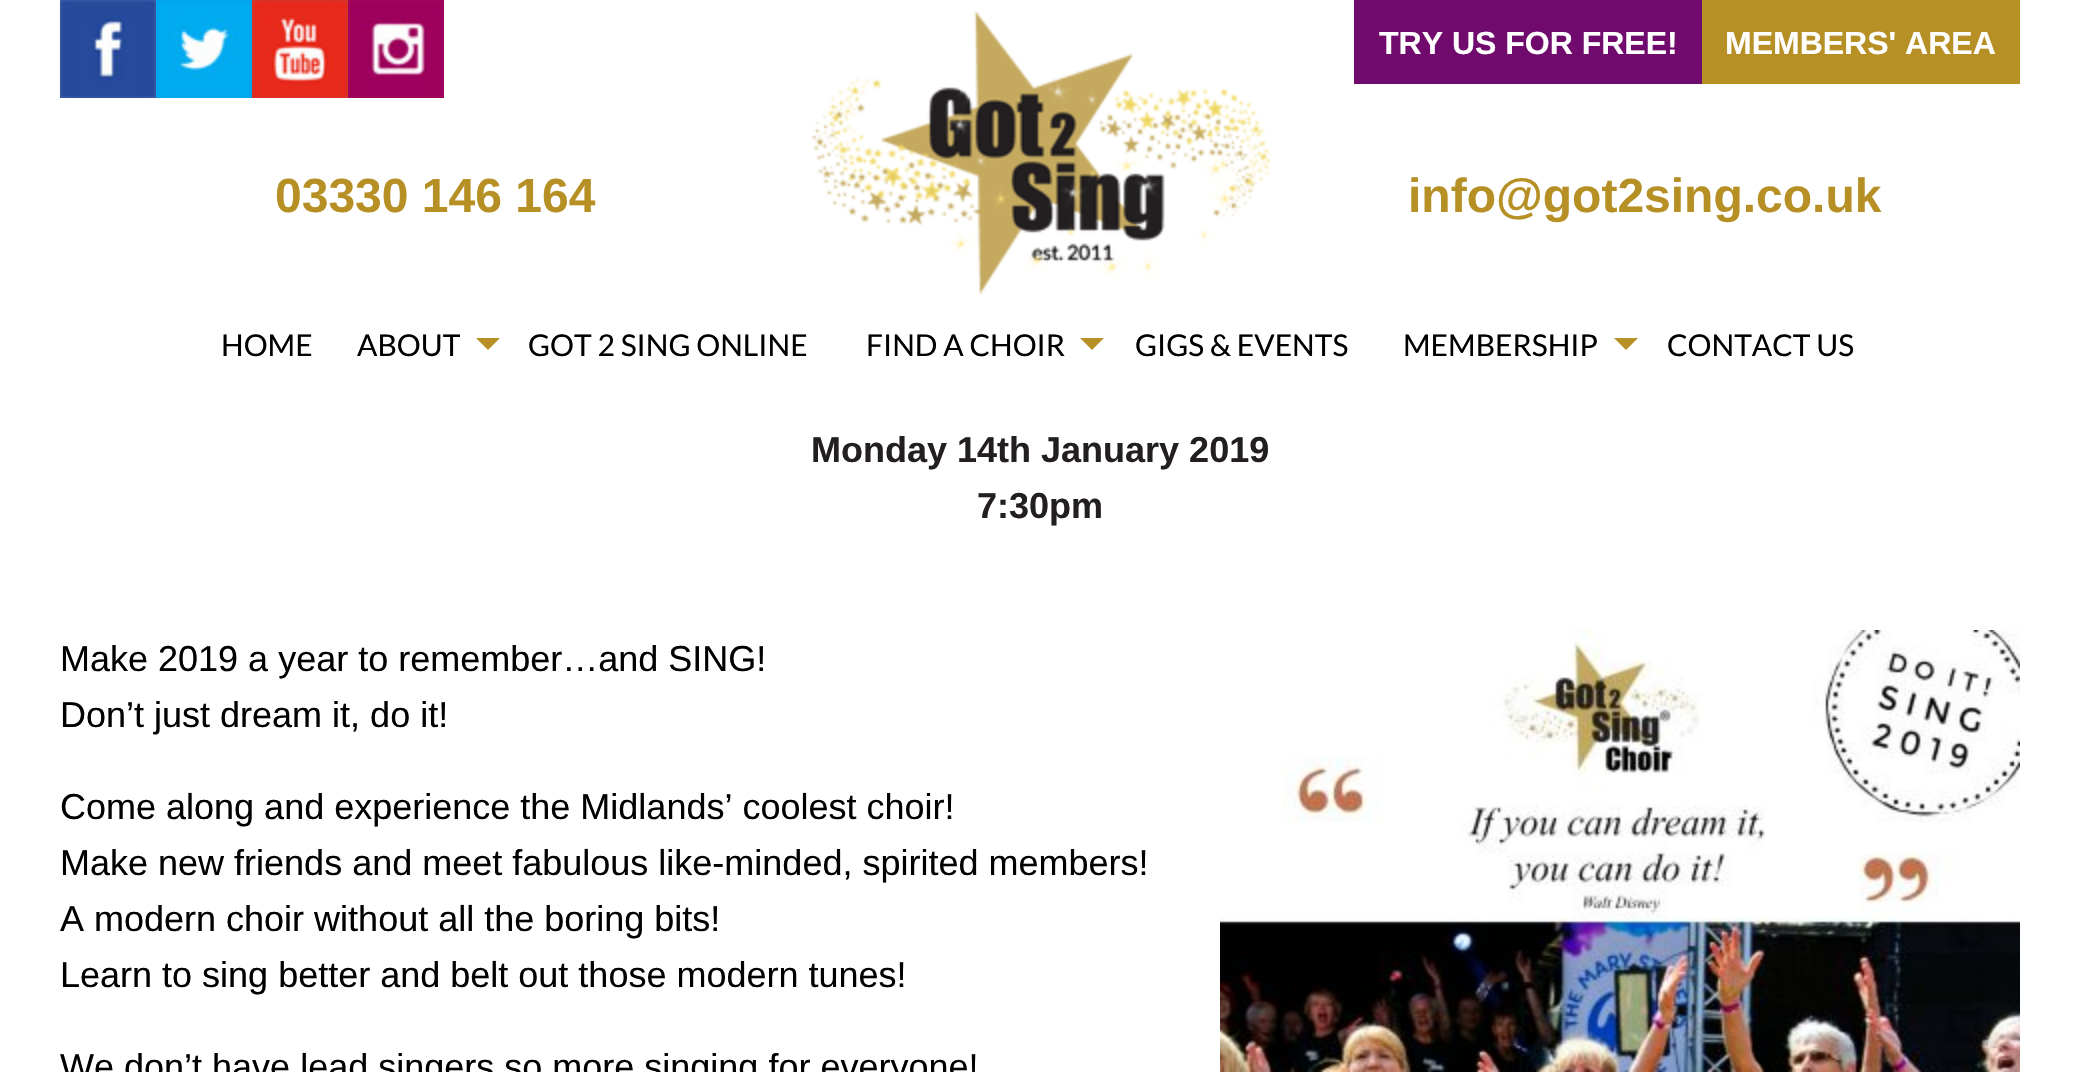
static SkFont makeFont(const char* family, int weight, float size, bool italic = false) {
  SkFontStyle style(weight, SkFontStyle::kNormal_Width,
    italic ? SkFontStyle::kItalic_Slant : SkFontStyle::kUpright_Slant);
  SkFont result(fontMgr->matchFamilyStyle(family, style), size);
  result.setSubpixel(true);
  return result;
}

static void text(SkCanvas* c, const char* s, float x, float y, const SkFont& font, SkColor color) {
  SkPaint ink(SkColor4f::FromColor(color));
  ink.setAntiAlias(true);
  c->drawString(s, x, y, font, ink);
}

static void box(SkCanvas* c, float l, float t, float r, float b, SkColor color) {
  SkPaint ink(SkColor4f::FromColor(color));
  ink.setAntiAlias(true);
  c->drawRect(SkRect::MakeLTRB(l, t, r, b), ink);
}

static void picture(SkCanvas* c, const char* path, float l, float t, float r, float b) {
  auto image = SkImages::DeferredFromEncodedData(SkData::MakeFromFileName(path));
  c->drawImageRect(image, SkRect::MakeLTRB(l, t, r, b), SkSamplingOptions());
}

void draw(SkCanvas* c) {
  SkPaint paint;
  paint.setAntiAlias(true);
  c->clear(0xffffffff);
  picture(c, "img_01.png", 60, 0, 156, 98);
  picture(c, "img_02.png", 156, 0, 252, 98);
  picture(c, "img_03.png", 252, 0, 348, 98);
  picture(c, "img_04.png", 348, 0, 444, 98);
  picture(c, "img_05.png", 811, 12, 1270, 294);
  box(c, 1354, 0, 1702, 84, 0xff700a6d);
  SkFont face1 = makeFont("Liberation Sans", 700, 32);
  text(c, "TRY US FOR FREE!", 1379, 54, face1, 0xffffffff);
  box(c, 1702, 0, 2020, 84, 0xffb79025);
  text(c, "MEMBERS' AREA", 1725, 54, face1, 0xffffffff);
  SkFont face2 = makeFont("Liberation Sans", 700, 48);
  text(c, "03330 146 164", 275, 212, face2, 0xffb79025);
  text(c, "info@got2sing.co.uk", 1408, 212, face2, 0xffb79025);
  SkFont face3 = makeFont("Lato", 400, 30);
  text(c, "HOME", 221, 356, face3, 0xff000000);
  text(c, "ABOUT", 357, 356, face3, 0xff000000);
  paint.setColor(0xffb79025);
  c->drawPath(SkPathBuilder().moveTo(476, 338).lineTo(500, 338).lineTo(488, 350).close().detach(), paint);
  text(c, "GOT 2 SING ONLINE", 528, 356, face3, 0xff000000);
  text(c, "FIND A CHOIR", 866, 356, face3, 0xff000000);
  c->drawPath(SkPathBuilder().moveTo(1080, 338).lineTo(1104, 338).lineTo(1092, 350).close().detach(), paint);
  text(c, "GIGS & EVENTS", 1135, 356, face3, 0xff000000);
  text(c, "MEMBERSHIP", 1403, 356, face3, 0xff000000);
  c->drawPath(SkPathBuilder().moveTo(1614, 338).lineTo(1638, 338).lineTo(1626, 350).close().detach(), paint);
  text(c, "CONTACT US", 1667, 356, face3, 0xff000000);
  SkFont face4 = makeFont("Liberation Sans", 700, 36);
  text(c, "Monday 14th January 2019", 811, 462, face4, 0xff231f20);
  text(c, "7:30pm", 977, 518, face4, 0xff231f20);
  SkFont face5 = makeFont("Liberation Sans", 400, 36);
  text(c, "Make 2019 a year to remember…and SING!", 60, 671, face5, 0xff000000);
  text(c, "Don’t just dream it, do it!", 60, 727, face5, 0xff000000);
  picture(c, "img_06.png", 1220, 630, 2020, 1072);
  text(c, "Come along and experience the Midlands’ coolest choir!", 60, 819, face5, 0xff000000);
  text(c, "Make new friends and meet fabulous like-minded, spirited members!", 60, 875, face5, 0xff000000);
  text(c, "A modern choir without all the boring bits!", 60, 931, face5, 0xff000000);
  text(c, "Learn to sing better and belt out those modern tunes!", 60, 987, face5, 0xff000000);
  text(c, "We don’t have lead singers so more singing for everyone!", 60, 1079, face5, 0xff000000);
}
